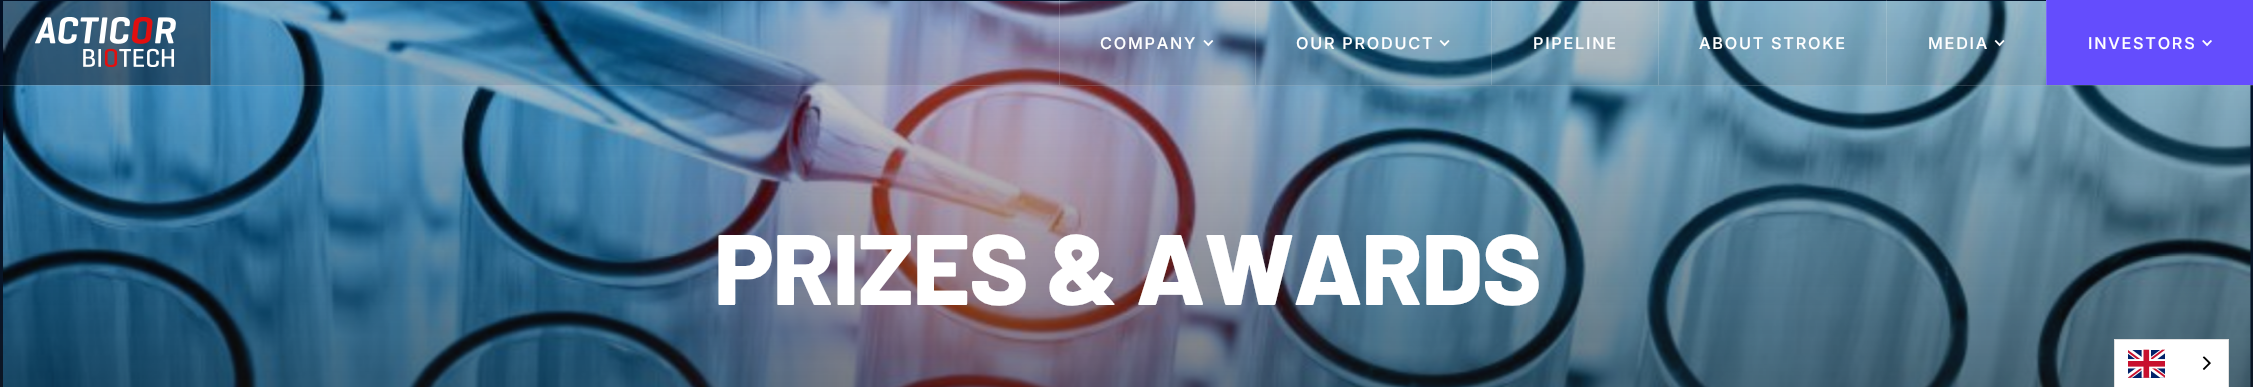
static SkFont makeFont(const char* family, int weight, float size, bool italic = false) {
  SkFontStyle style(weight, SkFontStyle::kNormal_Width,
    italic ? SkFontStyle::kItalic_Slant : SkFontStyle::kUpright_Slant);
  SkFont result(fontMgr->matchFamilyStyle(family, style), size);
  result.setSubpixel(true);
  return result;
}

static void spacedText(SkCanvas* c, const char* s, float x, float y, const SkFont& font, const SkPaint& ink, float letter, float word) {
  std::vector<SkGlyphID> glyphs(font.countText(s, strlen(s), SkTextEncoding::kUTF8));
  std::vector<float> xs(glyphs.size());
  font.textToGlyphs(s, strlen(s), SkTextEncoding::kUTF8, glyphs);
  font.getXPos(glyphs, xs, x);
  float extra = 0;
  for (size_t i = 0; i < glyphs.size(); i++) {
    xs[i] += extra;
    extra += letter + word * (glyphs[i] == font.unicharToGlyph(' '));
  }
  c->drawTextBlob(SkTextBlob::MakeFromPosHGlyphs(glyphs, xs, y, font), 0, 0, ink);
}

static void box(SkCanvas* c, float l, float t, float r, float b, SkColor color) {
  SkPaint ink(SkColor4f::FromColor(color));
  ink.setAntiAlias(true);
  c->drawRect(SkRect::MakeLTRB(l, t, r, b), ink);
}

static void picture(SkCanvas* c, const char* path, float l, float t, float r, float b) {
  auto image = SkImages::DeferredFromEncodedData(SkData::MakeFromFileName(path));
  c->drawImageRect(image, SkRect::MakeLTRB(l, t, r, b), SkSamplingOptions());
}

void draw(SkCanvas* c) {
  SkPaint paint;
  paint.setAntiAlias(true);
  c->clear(0xff021836);
  picture(c, "img_06.png", 3, 1, 2251, 387);
  {
    const SkColor colors[] = {0x1f000000, 0x96181818};
    const float stops[] = {0, 1};
    const SkPoint ends[] = {{1127, 0}, {1127, 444}};
    paint.setShader(SkGradientShader::MakeLinear(ends, colors, stops, 2, SkTileMode::kClamp));
    paint.setAlpha(255);
  }
  c->drawRect(SkRect::MakeLTRB(0, 0, 2253, 387), paint);
  box(c, 0, 0, 2253, 86, 0x1a1e1e1e);
  box(c, 0, 85, 2253, 86, 0x26ffffff);
  box(c, 0, 0, 211, 85, 0x6b010412);
  box(c, 210, 0, 211, 85, 0x26ffffff);
  picture(c, "img_01.png", 35, 17, 176, 67);
  box(c, 1059, 0, 1060, 85, 0x26ffffff);
  SkFont face1 = makeFont("Inter", 500, 16.25f);
  paint.setShader(nullptr);
  paint.setColor(0xffffffff);
  spacedText(c, "COMPANY", 1100, 49, face1, paint, 1.75f, 0);
  picture(c, "img_02.png", 1203, 40, 1214, 47);
  box(c, 1255, 0, 1256, 85, 0x26ffffff);
  spacedText(c, "OUR PRODUCT", 1296, 49, face1, paint, 1.75f, 0);
  picture(c, "img_03.png", 1439, 40, 1450, 47);
  box(c, 1491, 0, 1492, 85, 0x26ffffff);
  spacedText(c, "PIPELINE", 1533, 49, face1, paint, 1.75f, 0);
  box(c, 1658, 0, 1659, 85, 0x26ffffff);
  spacedText(c, "ABOUT STROKE", 1699, 49, face1, paint, 1.75f, 0);
  box(c, 1886, 0, 1887, 85, 0x26ffffff);
  spacedText(c, "MEDIA", 1928, 49, face1, paint, 1.75f, 0);
  picture(c, "img_04.png", 1994, 40, 2005, 47);
  box(c, 2047, 0, 2253, 85, 0xff644dfd);
  box(c, 2046, 0, 2047, 85, 0xff7b68fd);
  spacedText(c, "INVESTORS", 2088, 49, face1, paint, 1.75f, 0);
  picture(c, "img_05.png", 2202, 40, 2212, 47);
  SkFont face2 = makeFont("Barlow", 800, 100);
  spacedText(c, "PRIZES & AWARDS", 714, 305, face2, paint, -1.25f, 0);
  c->drawRect(SkRect::MakeLTRB(2114.5f, 339.5f, 2228.5f, 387.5f), paint);
  paint.setStyle(SkPaint::kStroke_Style);
  paint.setStrokeWidth(1);
  paint.setColor(0xffe0e0e0);
  c->drawRect(SkRect::MakeLTRB(2114.5f, 339.5f, 2228.5f, 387.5f), paint);
  picture(c, "img_07.png", 2128, 349, 2165, 378);
  picture(c, "img_08.png", 2202, 356, 2211, 370);
}
